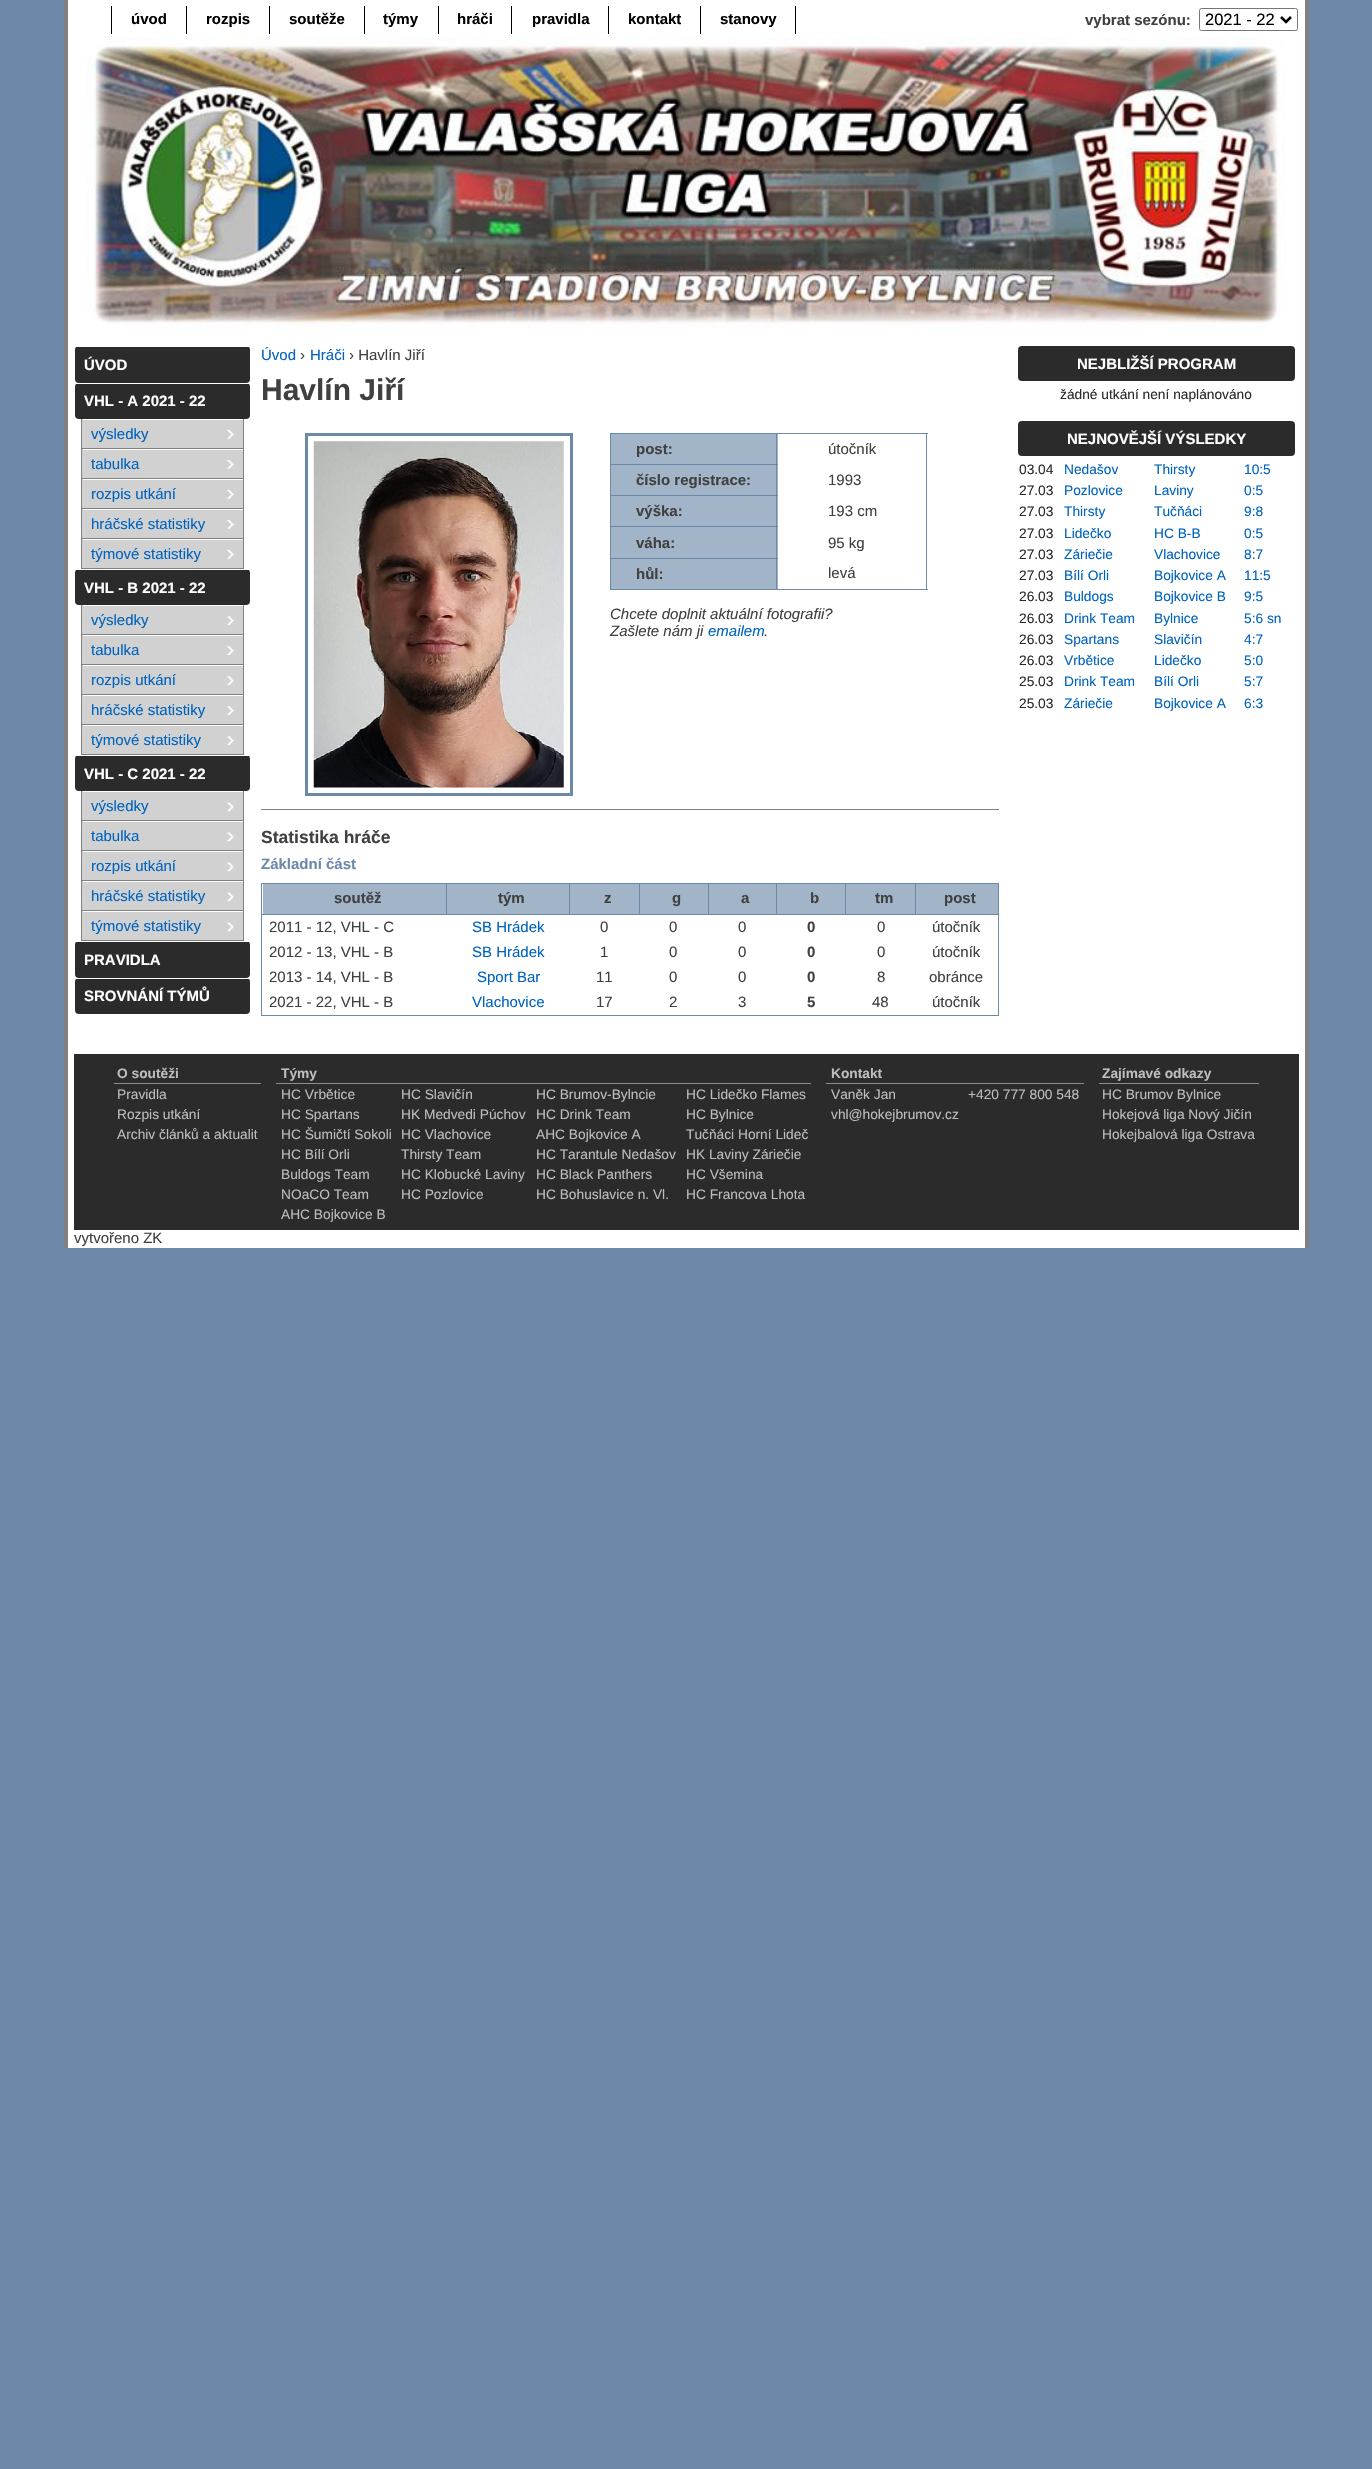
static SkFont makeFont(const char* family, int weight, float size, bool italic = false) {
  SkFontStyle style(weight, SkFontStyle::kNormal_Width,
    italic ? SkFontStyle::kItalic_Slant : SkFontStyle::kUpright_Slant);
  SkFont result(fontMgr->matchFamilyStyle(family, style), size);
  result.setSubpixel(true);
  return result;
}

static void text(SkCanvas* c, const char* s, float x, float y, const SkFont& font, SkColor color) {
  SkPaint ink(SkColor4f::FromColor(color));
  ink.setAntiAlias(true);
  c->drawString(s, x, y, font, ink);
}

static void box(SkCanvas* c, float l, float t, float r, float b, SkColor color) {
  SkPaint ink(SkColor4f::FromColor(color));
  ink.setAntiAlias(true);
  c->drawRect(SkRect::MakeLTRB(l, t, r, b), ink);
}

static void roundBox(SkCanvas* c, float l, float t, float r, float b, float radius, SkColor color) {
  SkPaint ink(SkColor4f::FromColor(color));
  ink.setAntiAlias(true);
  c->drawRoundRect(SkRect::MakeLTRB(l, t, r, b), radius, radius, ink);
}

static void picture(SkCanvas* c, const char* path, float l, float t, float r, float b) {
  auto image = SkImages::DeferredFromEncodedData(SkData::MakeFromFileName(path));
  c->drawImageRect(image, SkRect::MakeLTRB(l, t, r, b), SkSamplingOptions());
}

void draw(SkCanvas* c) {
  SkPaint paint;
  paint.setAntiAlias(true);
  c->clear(0xff6c89a9);
  box(c, 68, 0, 1305, 1248, 0xffffffff);
  box(c, 1305, 0, 1309, 1248, 0xff808080);
  box(c, 64, 0, 68, 1248, 0xff808080);
  picture(c, "img_01.png", 86, 37, 1285, 331);
  box(c, 111, 6, 112, 34, 0xff000000);
  SkFont face1 = makeFont("Liberation Sans", 700, 15);
  text(c, "úvod", 131, 24, face1, 0xff000000);
  box(c, 186, 6, 187, 34, 0xff000000);
  text(c, "rozpis", 206, 24, face1, 0xff000000);
  box(c, 269, 6, 270, 34, 0xff000000);
  text(c, "soutěže", 289, 24, face1, 0xff000000);
  box(c, 364, 6, 365, 34, 0xff000000);
  text(c, "týmy", 383, 24, face1, 0xff000000);
  box(c, 438, 6, 439, 34, 0xff000000);
  text(c, "hráči", 457, 24, face1, 0xff000000);
  box(c, 511, 6, 512, 34, 0xff000000);
  text(c, "pravidla", 532, 24, face1, 0xff000000);
  box(c, 608, 6, 609, 34, 0xff000000);
  text(c, "kontakt", 628, 24, face1, 0xff000000);
  box(c, 795, 6, 796, 34, 0xff000000);
  box(c, 700, 6, 701, 34, 0xff000000);
  text(c, "stanovy", 720, 24, face1, 0xff000000);
  text(c, "vybrat sezónu:", 1085, 25, face1, 0xff404040);
  paint.setStyle(SkPaint::kStroke_Style);
  paint.setStrokeWidth(1);
  paint.setColor(0xff767676);
  c->drawRoundRect(SkRect::MakeLTRB(1199.5f, 8.5f, 1297.5f, 30.5f), 2, 2, paint);
  paint.setStrokeWidth(2.5f);
  paint.setColor(0xff000000);
  c->drawPath(SkPathBuilder().moveTo(1281, 17).lineTo(1286, 22).lineTo(1291, 17).detach(), paint);
  SkFont face2 = makeFont("Liberation Sans", 400, 16.5f);
  text(c, "2021 - 22", 1205, 25, face2, 0xff000000);
  roundBox(c, 75, 346, 250, 383, 4, 0xff2b2b2b);
  box(c, 75, 346, 250, 347, 0xffffffff);
  text(c, "ÚVOD", 84, 370, face1, 0xffffffff);
  roundBox(c, 75, 383, 250, 419, 4, 0xff2b2b2b);
  box(c, 75, 383, 250, 384, 0xffffffff);
  text(c, "VHL - A 2021 - 22", 84, 406, face1, 0xffffffff);
  box(c, 82, 419, 243, 448, 0xffd1d1d1);
  box(c, 243, 419, 244, 569, 0xff808080);
  box(c, 81, 448, 244, 449, 0xff808080);
  box(c, 81, 419, 82, 449, 0xff808080);
  box(c, 83, 419, 243, 420, 0xffffffff);
  picture(c, "img_02.png", 227, 430, 234, 439);
  SkFont face3 = makeFont("Liberation Sans", 400, 15);
  text(c, "výsledky", 91, 439, face3, 0xff0063be);
  box(c, 82, 449, 243, 478, 0xffd1d1d1);
  box(c, 81, 478, 244, 479, 0xff808080);
  box(c, 81, 449, 82, 479, 0xff808080);
  box(c, 83, 449, 243, 450, 0xffffffff);
  picture(c, "img_02.png", 227, 460, 234, 469);
  text(c, "tabulka", 91, 469, face3, 0xff0063be);
  box(c, 82, 479, 243, 508, 0xffd1d1d1);
  box(c, 81, 508, 244, 509, 0xff808080);
  box(c, 81, 479, 82, 509, 0xff808080);
  box(c, 83, 479, 243, 480, 0xffffffff);
  picture(c, "img_02.png", 227, 490, 234, 499);
  text(c, "rozpis utkání", 91, 499, face3, 0xff0063be);
  box(c, 82, 509, 243, 538, 0xffd1d1d1);
  box(c, 81, 538, 244, 539, 0xff808080);
  box(c, 81, 509, 82, 539, 0xff808080);
  box(c, 83, 509, 243, 510, 0xffffffff);
  picture(c, "img_02.png", 227, 520, 234, 529);
  text(c, "hráčské statistiky", 91, 529, face3, 0xff0063be);
  box(c, 82, 539, 243, 568, 0xffd1d1d1);
  box(c, 81, 568, 244, 569, 0xff808080);
  box(c, 81, 539, 82, 569, 0xff808080);
  box(c, 83, 539, 243, 540, 0xffffffff);
  picture(c, "img_02.png", 227, 550, 234, 559);
  text(c, "týmové statistiky", 91, 559, face3, 0xff0063be);
  roundBox(c, 75, 569, 250, 605, 4, 0xff2b2b2b);
  box(c, 75, 569, 250, 570, 0xffffffff);
  text(c, "VHL - B 2021 - 22", 84, 593, face1, 0xffffffff);
  box(c, 82, 605, 243, 634, 0xffd1d1d1);
  box(c, 243, 605, 244, 755, 0xff808080);
  box(c, 81, 634, 244, 635, 0xff808080);
  box(c, 81, 605, 82, 635, 0xff808080);
  box(c, 83, 605, 243, 606, 0xffffffff);
  picture(c, "img_03.png", 227, 616, 234, 625);
  text(c, "výsledky", 91, 625, face3, 0xff0063be);
  box(c, 82, 635, 243, 664, 0xffd1d1d1);
  box(c, 81, 664, 244, 665, 0xff808080);
  box(c, 81, 635, 82, 665, 0xff808080);
  box(c, 83, 635, 243, 636, 0xffffffff);
  picture(c, "img_03.png", 227, 646, 234, 655);
  text(c, "tabulka", 91, 655, face3, 0xff0063be);
  box(c, 82, 665, 243, 694, 0xffd1d1d1);
  box(c, 81, 694, 244, 695, 0xff808080);
  box(c, 81, 665, 82, 695, 0xff808080);
  box(c, 83, 665, 243, 666, 0xffffffff);
  picture(c, "img_03.png", 227, 676, 234, 685);
  text(c, "rozpis utkání", 91, 685, face3, 0xff0063be);
  box(c, 82, 695, 243, 724, 0xffd1d1d1);
  box(c, 81, 724, 244, 725, 0xff808080);
  box(c, 81, 695, 82, 725, 0xff808080);
  box(c, 83, 695, 243, 696, 0xffffffff);
  picture(c, "img_03.png", 227, 706, 234, 715);
  text(c, "hráčské statistiky", 91, 715, face3, 0xff0063be);
  box(c, 82, 725, 243, 754, 0xffd1d1d1);
  box(c, 81, 754, 244, 755, 0xff808080);
  box(c, 81, 725, 82, 755, 0xff808080);
  box(c, 83, 725, 243, 726, 0xffffffff);
  picture(c, "img_03.png", 227, 736, 234, 745);
  text(c, "týmové statistiky", 91, 745, face3, 0xff0063be);
  roundBox(c, 75, 755, 250, 791, 4, 0xff2b2b2b);
  box(c, 75, 755, 250, 756, 0xffffffff);
  text(c, "VHL - C 2021 - 22", 84, 779, face1, 0xffffffff);
  box(c, 82, 791, 243, 820, 0xffd1d1d1);
  box(c, 243, 791, 244, 941, 0xff808080);
  box(c, 81, 820, 244, 821, 0xff808080);
  box(c, 81, 791, 82, 821, 0xff808080);
  box(c, 83, 791, 243, 792, 0xffffffff);
  picture(c, "img_04.png", 227, 802, 234, 812);
  text(c, "výsledky", 91, 811, face3, 0xff0063be);
  box(c, 82, 821, 243, 850, 0xffd1d1d1);
  box(c, 81, 850, 244, 851, 0xff808080);
  box(c, 81, 821, 82, 851, 0xff808080);
  box(c, 83, 821, 243, 822, 0xffffffff);
  picture(c, "img_04.png", 227, 832, 234, 842);
  text(c, "tabulka", 91, 841, face3, 0xff0063be);
  box(c, 82, 851, 243, 880, 0xffd1d1d1);
  box(c, 81, 880, 244, 881, 0xff808080);
  box(c, 81, 851, 82, 881, 0xff808080);
  box(c, 83, 851, 243, 852, 0xffffffff);
  picture(c, "img_04.png", 227, 862, 234, 872);
  text(c, "rozpis utkání", 91, 871, face3, 0xff0063be);
  box(c, 82, 881, 243, 910, 0xffd1d1d1);
  box(c, 81, 910, 244, 911, 0xff808080);
  box(c, 81, 881, 82, 911, 0xff808080);
  box(c, 83, 881, 243, 882, 0xffffffff);
  picture(c, "img_04.png", 227, 892, 234, 902);
  text(c, "hráčské statistiky", 91, 901, face3, 0xff0063be);
  box(c, 82, 911, 243, 940, 0xffd1d1d1);
  box(c, 81, 940, 244, 941, 0xff808080);
  box(c, 81, 911, 82, 941, 0xff808080);
  box(c, 83, 911, 243, 912, 0xffffffff);
  picture(c, "img_04.png", 227, 922, 234, 932);
  text(c, "týmové statistiky", 91, 931, face3, 0xff0063be);
  roundBox(c, 75, 941, 250, 978, 4, 0xff2b2b2b);
  box(c, 75, 941, 250, 942, 0xffffffff);
  text(c, "PRAVIDLA", 84, 965, face1, 0xffffffff);
  roundBox(c, 75, 978, 250, 1014, 4, 0xff2b2b2b);
  box(c, 75, 978, 250, 979, 0xffffffff);
  text(c, "SROVNÁNÍ TÝMŮ", 84, 1001, face1, 0xffffffff);
  text(c, "Úvod", 261, 360, face3, 0xff0063be);
  text(c, "›", 300, 360, face3, 0xff404040);
  text(c, "Hráči", 310, 360, face3, 0xff0063be);
  text(c, "› Havlín Jiří", 349, 360, face3, 0xff404040);
  SkFont face4 = makeFont("Liberation Sans", 700, 30);
  text(c, "Havlín Jiří", 261, 400, face4, 0xff404040);
  paint.setStrokeWidth(3);
  paint.setColor(0xff6c89a9);
  c->drawRect(SkRect::MakeLTRB(306.5f, 434.5f, 571.5f, 794.5f), paint);
  picture(c, "img_05.png", 313, 441, 564, 788);
  box(c, 610, 433, 928, 434, 0xff6c89a9);
  box(c, 926, 433, 927, 590, 0xff6c89a9);
  box(c, 610, 589, 928, 590, 0xff6c89a9);
  box(c, 610, 433, 611, 590, 0xff6c89a9);
  box(c, 611, 434, 778, 464, 0xffa1b4c8);
  text(c, "post:", 636, 454, face1, 0xff404040);
  text(c, "útočník", 828, 454, face3, 0xff404040);
  box(c, 611, 465, 778, 495, 0xffa1b4c8);
  box(c, 610, 464, 778, 465, 0xff6c89a9);
  box(c, 610, 495, 778, 496, 0xff6c89a9);
  box(c, 611, 496, 778, 558, 0xffa1b4c8);
  box(c, 610, 526, 778, 527, 0xff6c89a9);
  box(c, 610, 558, 778, 559, 0xff6c89a9);
  box(c, 611, 559, 778, 589, 0xffa1b4c8);
  box(c, 776, 558, 777, 590, 0xff6c89a9);
  box(c, 776, 526, 777, 559, 0xff6c89a9);
  box(c, 776, 495, 777, 528, 0xff6c89a9);
  box(c, 776, 433, 777, 496, 0xff6c89a9);
  text(c, "číslo registrace:", 636, 485, face1, 0xff404040);
  text(c, "1993", 828, 485, face3, 0xff404040);
  text(c, "výška:", 636, 516, face1, 0xff404040);
  text(c, "193 cm", 828, 516, face3, 0xff404040);
  text(c, "váha:", 636, 548, face1, 0xff404040);
  text(c, "95 kg", 828, 548, face3, 0xff404040);
  text(c, "hůl:", 636, 579, face1, 0xff404040);
  text(c, "levá", 828, 578, face3, 0xff404040);
  SkFont face5 = makeFont("Liberation Sans", 400, 15, true);
  text(c, "Chcete doplnit aktuální fotografii?", 610, 619, face5, 0xff404040);
  text(c, "Zašlete nám ji", 610, 636, face5, 0xff404040);
  text(c, "emailem", 708, 636, face5, 0xff0063be);
  text(c, ".", 764, 636, face5, 0xff404040);
  box(c, 261, 809, 999, 810, 0xff808080);
  SkFont face6 = makeFont("Liberation Sans", 700, 17.5f);
  text(c, "Statistika hráče", 261, 843, face6, 0xff404040);
  text(c, "Základní část", 261, 869, face1, 0xff6c89a9);
  box(c, 261, 883, 999, 884, 0xff6c89a9);
  box(c, 998, 883, 999, 1016, 0xff6c89a9);
  box(c, 261, 1015, 999, 1016, 0xff6c89a9);
  box(c, 261, 883, 262, 1016, 0xff6c89a9);
  box(c, 263, 884, 569, 914, 0xffa1b4c8);
  box(c, 915, 914, 999, 915, 0xff6c89a9);
  box(c, 915, 883, 916, 915, 0xff6c89a9);
  box(c, 845, 914, 916, 915, 0xff6c89a9);
  box(c, 845, 883, 846, 915, 0xff6c89a9);
  box(c, 776, 914, 846, 915, 0xff6c89a9);
  box(c, 709, 884, 845, 914, 0xffa1b4c8);
  box(c, 776, 883, 777, 915, 0xff6c89a9);
  box(c, 708, 914, 778, 915, 0xff6c89a9);
  box(c, 708, 883, 709, 915, 0xff6c89a9);
  box(c, 639, 914, 709, 915, 0xff6c89a9);
  box(c, 639, 883, 640, 915, 0xff6c89a9);
  box(c, 569, 914, 640, 915, 0xff6c89a9);
  box(c, 569, 883, 570, 915, 0xff6c89a9);
  box(c, 446, 914, 570, 915, 0xff6c89a9);
  box(c, 446, 883, 447, 915, 0xff6c89a9);
  box(c, 261, 914, 448, 915, 0xff6c89a9);
  text(c, "soutěž", 334, 903, face1, 0xff404040);
  text(c, "tým", 498, 903, face1, 0xff404040);
  box(c, 570, 884, 639, 914, 0xffa1b4c8);
  text(c, "z", 604, 903, face1, 0xff404040);
  box(c, 640, 884, 708, 914, 0xffa1b4c8);
  text(c, "g", 672, 903, face1, 0xff404040);
  text(c, "a", 741, 903, face1, 0xff404040);
  text(c, "b", 810, 903, face1, 0xff404040);
  box(c, 846, 884, 915, 914, 0xffa1b4c8);
  text(c, "tm", 875, 903, face1, 0xff404040);
  box(c, 916, 884, 998, 914, 0xffa1b4c8);
  text(c, "post", 944, 903, face1, 0xff404040);
  text(c, "2011 - 12, VHL - C", 269, 932, face3, 0xff404040);
  text(c, "SB Hrádek", 472, 932, face3, 0xff0063be);
  text(c, "0", 600, 932, face3, 0xff404040);
  text(c, "0", 669, 932, face3, 0xff404040);
  text(c, "0", 738, 932, face3, 0xff404040);
  text(c, "0", 807, 932, face1, 0xff404040);
  text(c, "0", 877, 932, face3, 0xff404040);
  text(c, "útočník", 932, 932, face3, 0xff404040);
  text(c, "2012 - 13, VHL - B", 269, 957, face3, 0xff404040);
  text(c, "SB Hrádek", 472, 957, face3, 0xff0063be);
  text(c, "1", 600, 957, face3, 0xff404040);
  text(c, "0", 669, 957, face3, 0xff404040);
  text(c, "0", 738, 957, face3, 0xff404040);
  text(c, "0", 807, 957, face1, 0xff404040);
  text(c, "0", 877, 957, face3, 0xff404040);
  text(c, "útočník", 932, 957, face3, 0xff404040);
  text(c, "2013 - 14, VHL - B", 269, 982, face3, 0xff404040);
  text(c, "Sport Bar", 477, 982, face3, 0xff0063be);
  text(c, "11", 596, 982, face3, 0xff404040);
  text(c, "0", 669, 982, face3, 0xff404040);
  text(c, "0", 738, 982, face3, 0xff404040);
  text(c, "0", 807, 982, face1, 0xff404040);
  text(c, "8", 877, 982, face3, 0xff404040);
  text(c, "obránce", 929, 982, face3, 0xff404040);
  text(c, "2021 - 22, VHL - B", 269, 1007, face3, 0xff404040);
  text(c, "Vlachovice", 472, 1007, face3, 0xff0063be);
  text(c, "17", 596, 1007, face3, 0xff404040);
  text(c, "2", 669, 1007, face3, 0xff404040);
  text(c, "3", 738, 1007, face3, 0xff404040);
  text(c, "5", 807, 1007, face1, 0xff404040);
  text(c, "48", 872, 1007, face3, 0xff404040);
  text(c, "útočník", 932, 1007, face3, 0xff404040);
  roundBox(c, 1018, 346, 1295, 381, 4, 0xff2b2b2b);
  text(c, "NEJBLIŽŠÍ PROGRAM", 1077, 369, face1, 0xffffffff);
  SkFont face7 = makeFont("Liberation Sans", 400, 13.75f);
  text(c, "žádné utkání není naplánováno", 1060, 399, face7, 0xff2b2b2b);
  roundBox(c, 1018, 421, 1295, 456, 4, 0xff2b2b2b);
  text(c, "NEJNOVĚJŠÍ VÝSLEDKY", 1067, 444, face1, 0xffffffff);
  text(c, "03.04", 1019, 474, face7, 0xff2b2b2b);
  text(c, "Nedašov", 1064, 474, face7, 0xff0063be);
  text(c, "Thirsty", 1154, 474, face7, 0xff0063be);
  text(c, "10:5", 1244, 474, face7, 0xff0063be);
  text(c, "27.03", 1019, 495, face7, 0xff2b2b2b);
  text(c, "Pozlovice", 1064, 495, face7, 0xff0063be);
  text(c, "Laviny", 1154, 495, face7, 0xff0063be);
  text(c, "0:5", 1244, 495, face7, 0xff0063be);
  text(c, "27.03", 1019, 516, face7, 0xff2b2b2b);
  text(c, "Thirsty", 1064, 516, face7, 0xff0063be);
  text(c, "Tučňáci", 1154, 516, face7, 0xff0063be);
  text(c, "9:8", 1244, 516, face7, 0xff0063be);
  text(c, "27.03", 1019, 538, face7, 0xff2b2b2b);
  text(c, "Lidečko", 1064, 538, face7, 0xff0063be);
  text(c, "HC B-B", 1154, 538, face7, 0xff0063be);
  text(c, "0:5", 1244, 538, face7, 0xff0063be);
  text(c, "27.03", 1019, 559, face7, 0xff2b2b2b);
  text(c, "Záriečie", 1064, 559, face7, 0xff0063be);
  text(c, "Vlachovice", 1154, 559, face7, 0xff0063be);
  text(c, "8:7", 1244, 559, face7, 0xff0063be);
  text(c, "27.03", 1019, 580, face7, 0xff2b2b2b);
  text(c, "Bílí Orli", 1064, 580, face7, 0xff0063be);
  text(c, "Bojkovice A", 1154, 580, face7, 0xff0063be);
  text(c, "11:5", 1244, 580, face7, 0xff0063be);
  text(c, "26.03", 1019, 601, face7, 0xff2b2b2b);
  text(c, "Buldogs", 1064, 601, face7, 0xff0063be);
  text(c, "Bojkovice B", 1154, 601, face7, 0xff0063be);
  text(c, "9:5", 1244, 601, face7, 0xff0063be);
  text(c, "26.03", 1019, 623, face7, 0xff2b2b2b);
  text(c, "Drink Team", 1064, 623, face7, 0xff0063be);
  text(c, "Bylnice", 1154, 623, face7, 0xff0063be);
  text(c, "5:6 sn", 1244, 623, face7, 0xff0063be);
  text(c, "26.03", 1019, 644, face7, 0xff2b2b2b);
  text(c, "Spartans", 1064, 644, face7, 0xff0063be);
  text(c, "Slavičín", 1154, 644, face7, 0xff0063be);
  text(c, "4:7", 1244, 644, face7, 0xff0063be);
  text(c, "26.03", 1019, 665, face7, 0xff2b2b2b);
  text(c, "Vrbětice", 1064, 665, face7, 0xff0063be);
  text(c, "Lidečko", 1154, 665, face7, 0xff0063be);
  text(c, "5:0", 1244, 665, face7, 0xff0063be);
  text(c, "25.03", 1019, 686, face7, 0xff2b2b2b);
  text(c, "Drink Team", 1064, 686, face7, 0xff0063be);
  text(c, "Bílí Orli", 1154, 686, face7, 0xff0063be);
  text(c, "5:7", 1244, 686, face7, 0xff0063be);
  text(c, "25.03", 1019, 708, face7, 0xff2b2b2b);
  text(c, "Záriečie", 1064, 708, face7, 0xff0063be);
  text(c, "Bojkovice A", 1154, 708, face7, 0xff0063be);
  text(c, "6:3", 1244, 708, face7, 0xff0063be);
  box(c, 74, 1054, 1299, 1230, 0xff2b2b2b);
  box(c, 114, 1083, 261, 1084, 0xff8d8d8d);
  SkFont face8 = makeFont("Liberation Sans", 700, 13.75f);
  text(c, "O soutěži", 117, 1078, face8, 0xffbdbdbd);
  text(c, "Pravidla", 117, 1099, face7, 0xffbdbdbd);
  text(c, "Rozpis utkání", 117, 1119, face7, 0xffbdbdbd);
  text(c, "Archiv článků a aktualit", 117, 1139, face7, 0xffbdbdbd);
  box(c, 276, 1083, 811, 1084, 0xff8d8d8d);
  text(c, "Týmy", 281, 1078, face8, 0xffbdbdbd);
  text(c, "HC Vrbětice", 281, 1099, face7, 0xffbdbdbd);
  text(c, "HC Slavičín", 401, 1099, face7, 0xffbdbdbd);
  text(c, "HC Brumov-Bylncie", 536, 1099, face7, 0xffbdbdbd);
  text(c, "HC Lidečko Flames", 686, 1099, face7, 0xffbdbdbd);
  text(c, "HC Spartans", 281, 1119, face7, 0xffbdbdbd);
  text(c, "HK Medvedi Púchov", 401, 1119, face7, 0xffbdbdbd);
  text(c, "HC Drink Team", 536, 1119, face7, 0xffbdbdbd);
  text(c, "HC Bylnice", 686, 1119, face7, 0xffbdbdbd);
  text(c, "HC Šumičtí Sokoli", 281, 1139, face7, 0xffbdbdbd);
  text(c, "HC Vlachovice", 401, 1139, face7, 0xffbdbdbd);
  text(c, "AHC Bojkovice A", 536, 1139, face7, 0xffbdbdbd);
  text(c, "Tučňáci Horní Lideč", 686, 1139, face7, 0xffbdbdbd);
  text(c, "HC Bílí Orli", 281, 1159, face7, 0xffbdbdbd);
  text(c, "Thirsty Team", 401, 1159, face7, 0xffbdbdbd);
  text(c, "HC Tarantule Nedašov", 536, 1159, face7, 0xffbdbdbd);
  text(c, "HK Laviny Záriečie", 686, 1159, face7, 0xffbdbdbd);
  text(c, "Buldogs Team", 281, 1179, face7, 0xffbdbdbd);
  text(c, "HC Klobucké Laviny", 401, 1179, face7, 0xffbdbdbd);
  text(c, "HC Black Panthers", 536, 1179, face7, 0xffbdbdbd);
  text(c, "HC Všemina", 686, 1179, face7, 0xffbdbdbd);
  text(c, "NOaCO Team", 281, 1199, face7, 0xffbdbdbd);
  text(c, "HC Pozlovice", 401, 1199, face7, 0xffbdbdbd);
  text(c, "HC Bohuslavice n. Vl.", 536, 1199, face7, 0xffbdbdbd);
  text(c, "HC Francova Lhota", 686, 1199, face7, 0xffbdbdbd);
  text(c, "AHC Bojkovice B", 281, 1219, face7, 0xffbdbdbd);
  box(c, 826, 1083, 1084, 1084, 0xff8d8d8d);
  text(c, "Kontakt", 831, 1078, face8, 0xffbdbdbd);
  text(c, "Vaněk Jan", 831, 1099, face7, 0xffbdbdbd);
  text(c, "+420 777 800 548", 968, 1099, face7, 0xffbdbdbd);
  text(c, "vhl@hokejbrumov.cz", 831, 1119, face7, 0xffbdbdbd);
  box(c, 1099, 1083, 1259, 1084, 0xff8d8d8d);
  text(c, "Zajímavé odkazy", 1102, 1078, face8, 0xffbdbdbd);
  text(c, "HC Brumov Bylnice", 1102, 1099, face7, 0xffbdbdbd);
  text(c, "Hokejová liga Nový Jičín", 1102, 1119, face7, 0xffbdbdbd);
  text(c, "Hokejbalová liga Ostrava", 1102, 1139, face7, 0xffbdbdbd);
  text(c, "vytvořeno ZK", 74, 1243, face3, 0xff404040);
}
